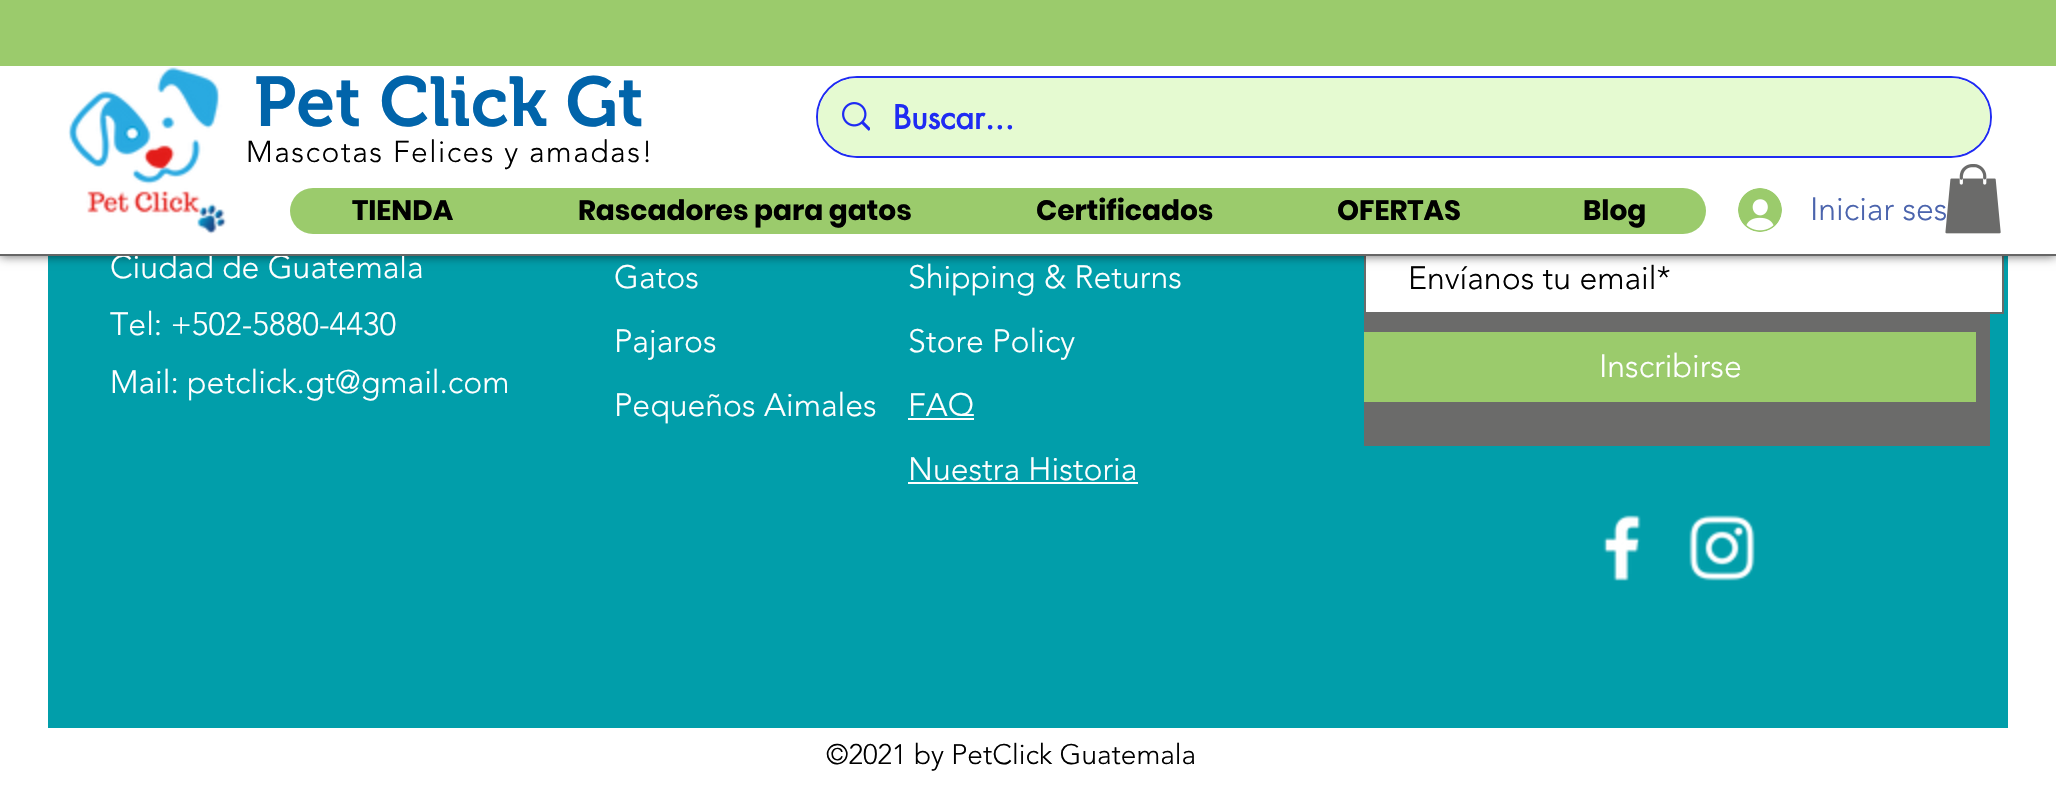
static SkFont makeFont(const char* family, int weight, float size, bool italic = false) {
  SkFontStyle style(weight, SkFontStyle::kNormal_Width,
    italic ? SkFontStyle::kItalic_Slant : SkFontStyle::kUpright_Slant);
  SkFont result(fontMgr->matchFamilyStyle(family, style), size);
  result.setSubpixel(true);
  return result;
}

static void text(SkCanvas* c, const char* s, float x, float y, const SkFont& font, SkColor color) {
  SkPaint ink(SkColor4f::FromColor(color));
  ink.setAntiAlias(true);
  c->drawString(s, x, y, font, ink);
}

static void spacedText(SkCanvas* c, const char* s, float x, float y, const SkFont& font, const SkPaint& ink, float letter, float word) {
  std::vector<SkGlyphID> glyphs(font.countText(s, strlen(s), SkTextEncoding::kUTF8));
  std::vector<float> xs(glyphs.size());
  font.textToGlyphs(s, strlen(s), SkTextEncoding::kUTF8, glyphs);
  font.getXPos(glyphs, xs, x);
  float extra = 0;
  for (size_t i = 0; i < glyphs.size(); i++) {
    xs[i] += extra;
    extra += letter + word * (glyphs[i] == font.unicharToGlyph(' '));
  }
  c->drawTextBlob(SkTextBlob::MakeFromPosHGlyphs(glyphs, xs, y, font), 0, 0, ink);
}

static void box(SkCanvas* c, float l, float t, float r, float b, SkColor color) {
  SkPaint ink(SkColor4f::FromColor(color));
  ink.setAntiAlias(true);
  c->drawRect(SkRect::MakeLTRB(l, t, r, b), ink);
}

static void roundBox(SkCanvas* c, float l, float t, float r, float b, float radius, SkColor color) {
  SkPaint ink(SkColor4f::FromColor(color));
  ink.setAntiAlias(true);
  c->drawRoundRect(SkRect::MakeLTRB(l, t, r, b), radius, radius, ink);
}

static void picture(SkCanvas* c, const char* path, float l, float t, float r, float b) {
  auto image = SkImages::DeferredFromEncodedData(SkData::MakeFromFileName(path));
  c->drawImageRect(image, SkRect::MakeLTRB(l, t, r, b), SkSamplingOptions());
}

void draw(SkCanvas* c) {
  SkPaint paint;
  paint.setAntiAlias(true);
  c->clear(0xffffffff);
  box(c, 48, 256, 2008, 728, 0xff019eaa);
  box(c, 1366, 256, 2002, 312, 0xffffffff);
  paint.setStyle(SkPaint::kStroke_Style);
  paint.setStrokeWidth(2);
  paint.setColor(0xff6b6b6a);
  c->drawRect(SkRect::MakeLTRB(1365, 245, 2003, 313), paint);
  paint.setStyle(SkPaint::kFill_Style);
  paint.setColor(0x99000000);
  paint.setMaskFilter(SkMaskFilter::MakeBlur(kNormal_SkBlurStyle, 5));
  c->drawRect(SkRect::MakeLTRB(0, 0, 2056, 256), paint);
  paint.setMaskFilter(nullptr);
  box(c, 0, 66, 2056, 254, 0xffffffff);
  SkFont face1 = makeFont("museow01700", 600, 70);
  text(c, "Pet Click Gt", 254, 126, face1, 0xff0164aa);
  SkFont face2 = makeFont("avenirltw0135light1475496", 300, 30);
  paint.setColor(0xff000000);
  spacedText(c, "Mascotas Felices y amadas!", 246, 162, face2, paint, 1.5f, 0);
  roundBox(c, 290, 188, 1706, 234, 23, 0xff9bcb6c);
  SkFont face3 = makeFont("Poppins", 700, 28);
  text(c, "TIENDA", 352, 220, face3, 0xff000000);
  text(c, "Rascadores para gatos", 578, 220, face3, 0xff000000);
  text(c, "Certificados", 1036, 220, face3, 0xff000000);
  text(c, "OFERTAS", 1337, 220, face3, 0xff000000);
  text(c, "Blog", 1583, 220, face3, 0xff000000);
  SkFont face4 = makeFont("avenirltw0135light1475496", 300, 32);
  text(c, "Iniciar ses", 1810, 220, face4, 0xff4b64ad);
  picture(c, "img_01.png", 1945, 164, 2001, 234);
  text(c, "Ciudad de Guatemala", 110, 278, face4, 0xffffffff);
  box(c, 0, 254, 2056, 256, 0xff666666);
  box(c, 0, 0, 2056, 66, 0xff9bcb6c);
  picture(c, "img_02.png", 68, 67, 227, 234);
  paint.setStyle(SkPaint::kStroke_Style);
  paint.setColor(0xff1f2bf3);
  c->drawRoundRect(SkRect::MakeLTRB(817, 77, 1991, 157), 40, 40, paint);
  roundBox(c, 818, 78, 1990, 156, 39, 0xffe5fad1);
  picture(c, "img_03.png", 842, 102, 870, 131);
  SkFont face5 = makeFont("futura", 700, 32);
  text(c, "Buscar...", 893, 129, face5, 0xff1f2bf3);
  picture(c, "img_04.png", 1738, 188, 1782, 232);
  text(c, "Tel: +502-5880-4430", 110, 335, face4, 0xffffffff);
  text(c, "Mail: petclick.gt@gmail.com", 110, 393, face4, 0xffffffff);
  text(c, "Gatos", 614, 288, face4, 0xffffffff);
  text(c, "Pajaros", 614, 352, face4, 0xffffffff);
  text(c, "Pequeños Aimales", 614, 416, face4, 0xffffffff);
  text(c, "Shipping & Returns", 908, 288, face4, 0xffffffff);
  text(c, "Store Policy", 908, 352, face4, 0xffffffff);
  text(c, "FAQ", 908, 416, face4, 0xffffffff);
  box(c, 908, 418, 974, 420, 0xffffffff);
  text(c, "Nuestra Historia", 908, 480, face4, 0xffffffff);
  box(c, 908, 482, 1138, 484, 0xffffffff);
  box(c, 1364, 314, 1990, 446, 0xff6b6b6a);
  text(c, "Envíanos tu email*", 1408, 289, face4, 0xff000000);
  box(c, 1364, 332, 1976, 402, 0xff9bcb6c);
  text(c, "Inscribirse", 1599, 377, face4, 0xffffffff);
  picture(c, "img_05.png", 1603, 515, 1641, 581);
  picture(c, "img_06.png", 1689, 515, 1755, 581);
  SkFont face6 = makeFont("avenirltw0135light1475496", 300, 28);
  text(c, "©2021 by PetClick Guatemala", 826, 764, face6, 0xff000000);
}
